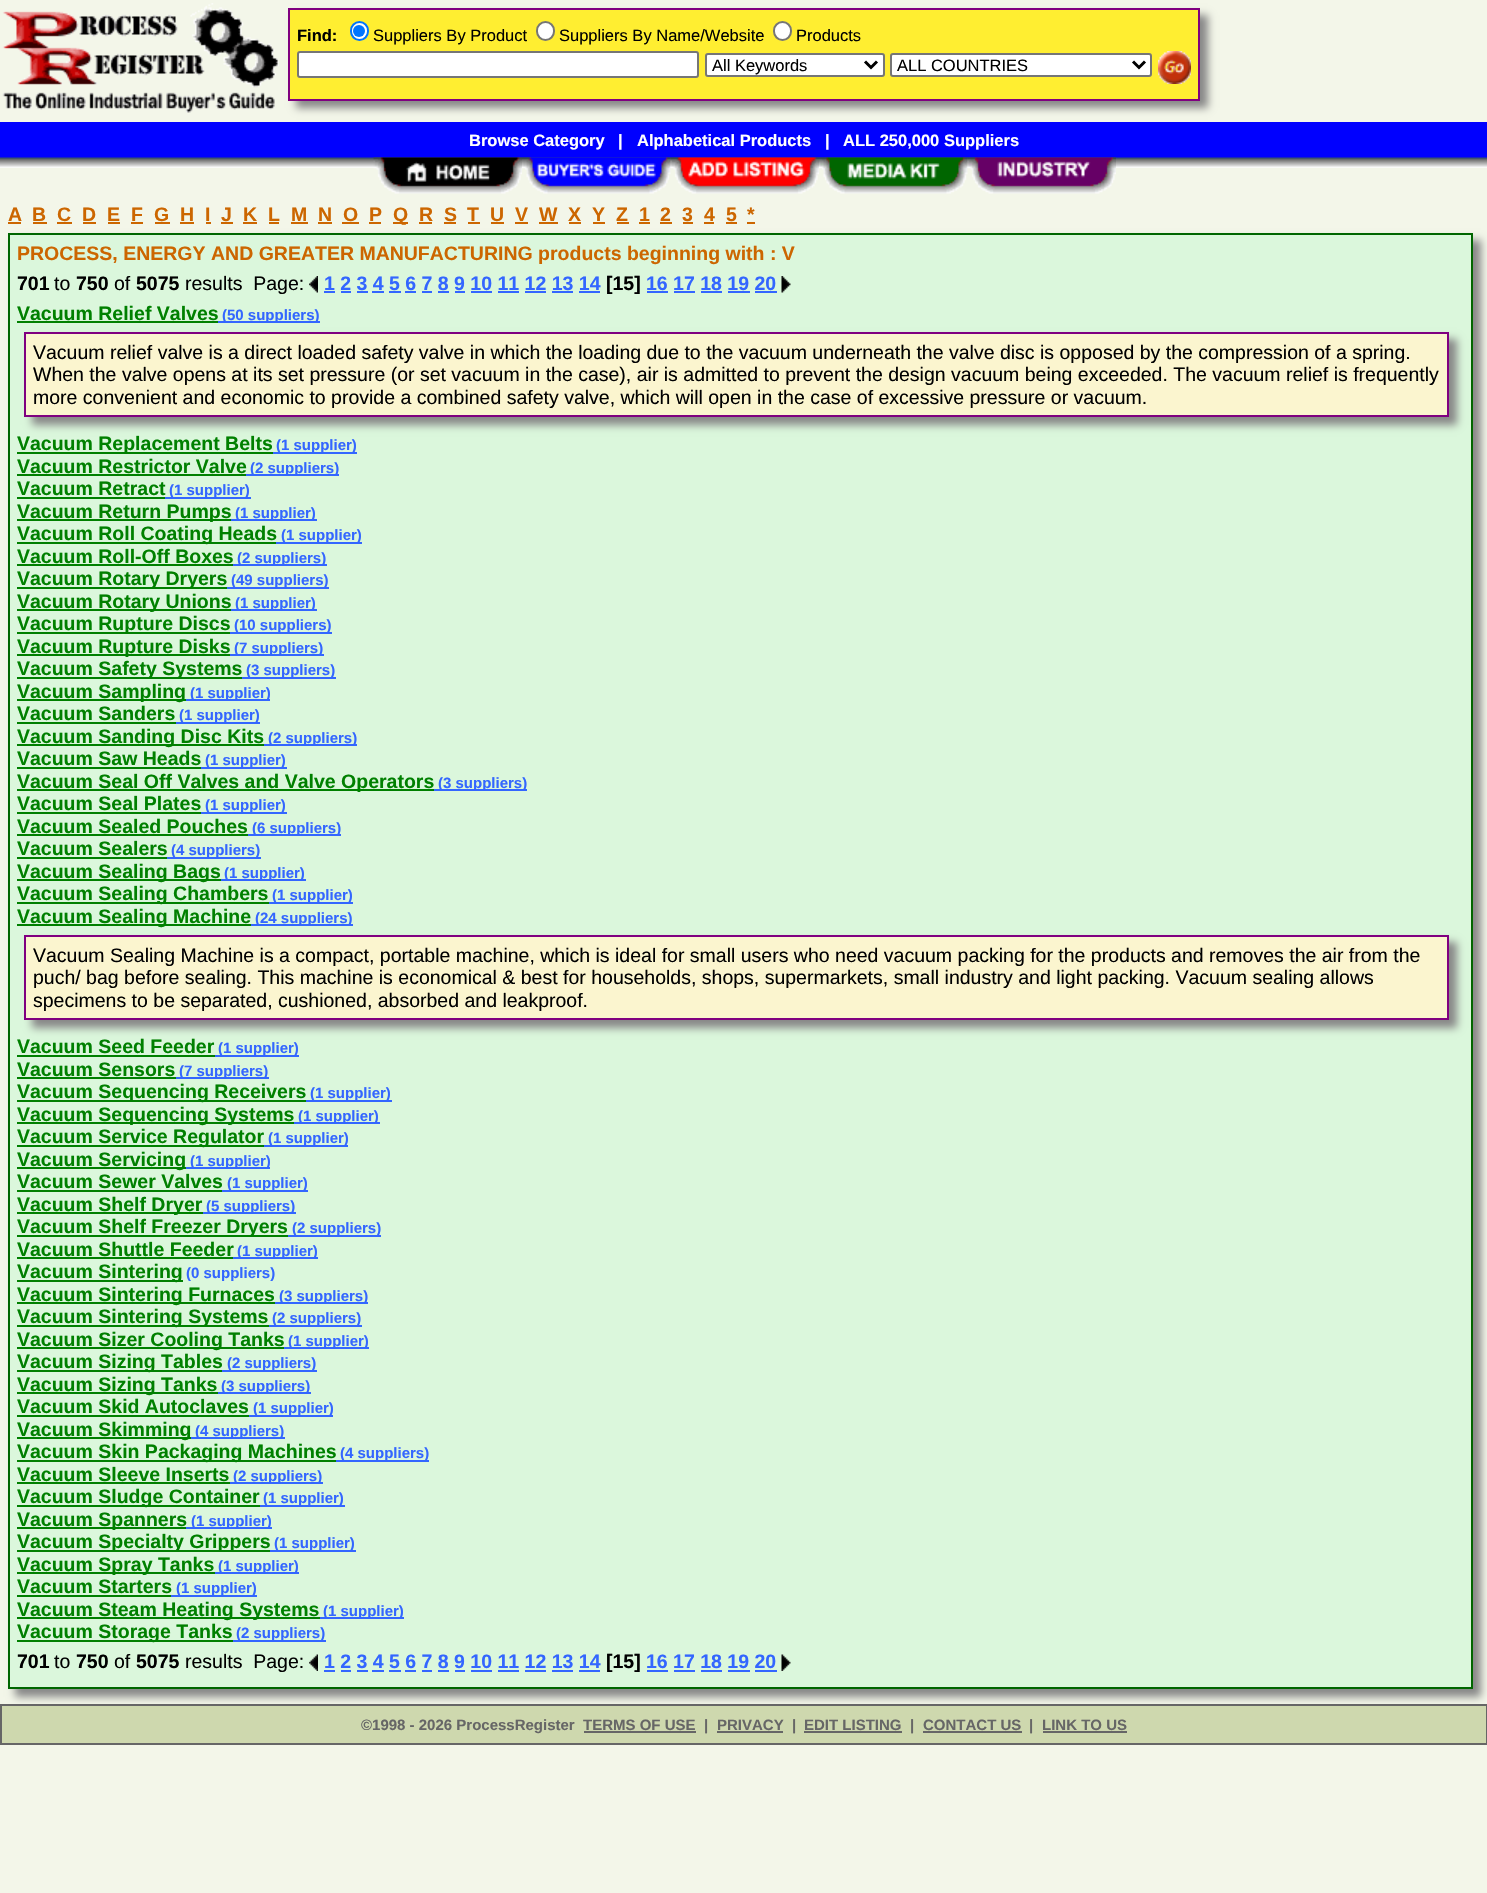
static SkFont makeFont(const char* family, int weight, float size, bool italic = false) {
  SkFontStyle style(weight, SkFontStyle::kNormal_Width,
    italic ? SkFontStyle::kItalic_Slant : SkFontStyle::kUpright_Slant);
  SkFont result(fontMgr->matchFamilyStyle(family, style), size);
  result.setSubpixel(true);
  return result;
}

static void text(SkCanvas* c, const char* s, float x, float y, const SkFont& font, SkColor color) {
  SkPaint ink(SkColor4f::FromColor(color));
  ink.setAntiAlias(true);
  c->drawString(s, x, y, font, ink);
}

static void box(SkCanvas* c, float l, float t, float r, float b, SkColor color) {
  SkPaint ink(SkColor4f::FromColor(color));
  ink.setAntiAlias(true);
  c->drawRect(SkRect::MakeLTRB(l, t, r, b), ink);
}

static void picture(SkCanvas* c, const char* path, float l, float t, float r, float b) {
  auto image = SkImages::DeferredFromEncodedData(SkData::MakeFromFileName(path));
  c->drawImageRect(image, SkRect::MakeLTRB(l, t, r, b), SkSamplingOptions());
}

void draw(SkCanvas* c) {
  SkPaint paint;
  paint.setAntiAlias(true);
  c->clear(0xfff3f6e9);
  picture(c, "img_01.png", 2, 3, 279, 113);
  paint.setColor(0xff888888);
  paint.setMaskFilter(SkMaskFilter::MakeBlur(kNormal_SkBlurStyle, 4));
  c->drawRect(SkRect::MakeLTRB(296, 15, 1208, 108), paint);
  paint.setMaskFilter(nullptr);
  paint.setColor(0xffffee31);
  c->drawRect(SkRect::MakeLTRB(289, 9, 1199, 100), paint);
  paint.setStyle(SkPaint::kStroke_Style);
  paint.setStrokeWidth(2);
  paint.setColor(0xff800080);
  c->drawRect(SkRect::MakeLTRB(289, 9, 1199, 100), paint);
  SkFont face1 = makeFont("Liberation Sans", 700, 16.5f);
  text(c, "Find:", 297, 41, face1, 0xff000000);
  paint.setStyle(SkPaint::kFill_Style);
  paint.setColor(0xffffffff);
  c->drawRoundRect(SkRect::MakeLTRB(351, 22, 368, 40), 8.5f, 8.5f, paint);
  paint.setStyle(SkPaint::kStroke_Style);
  paint.setColor(0xff0075ff);
  c->drawRoundRect(SkRect::MakeLTRB(351, 22, 368, 40), 8.5f, 8.5f, paint);
  paint.setStyle(SkPaint::kFill_Style);
  c->drawCircle(359, 31, 6, paint);
  SkFont face2 = makeFont("Liberation Sans", 400, 16.5f);
  text(c, "Suppliers By Product", 373, 41, face2, 0xff000000);
  paint.setColor(0xffffffff);
  c->drawRoundRect(SkRect::MakeLTRB(537, 22, 554, 40), 8.5f, 8.5f, paint);
  paint.setStyle(SkPaint::kStroke_Style);
  paint.setColor(0xff767676);
  c->drawRoundRect(SkRect::MakeLTRB(537, 22, 554, 40), 8.5f, 8.5f, paint);
  text(c, "Suppliers By Name/Website", 559, 41, face2, 0xff000000);
  paint.setStyle(SkPaint::kFill_Style);
  paint.setColor(0xffffffff);
  c->drawRoundRect(SkRect::MakeLTRB(774, 22, 791, 40), 8.5f, 8.5f, paint);
  paint.setStyle(SkPaint::kStroke_Style);
  paint.setColor(0xff767676);
  c->drawRoundRect(SkRect::MakeLTRB(774, 22, 791, 40), 8.5f, 8.5f, paint);
  text(c, "Products", 796, 41, face2, 0xff000000);
  paint.setStyle(SkPaint::kFill_Style);
  paint.setColor(0xffffffff);
  c->drawRoundRect(SkRect::MakeLTRB(298, 52, 698, 77), 2, 2, paint);
  paint.setStyle(SkPaint::kStroke_Style);
  paint.setColor(0xff767676);
  c->drawRoundRect(SkRect::MakeLTRB(298, 52, 698, 77), 2, 2, paint);
  paint.setStyle(SkPaint::kFill_Style);
  paint.setColor(0xffffffff);
  c->drawRoundRect(SkRect::MakeLTRB(706, 54, 884, 76), 2, 2, paint);
  paint.setStyle(SkPaint::kStroke_Style);
  paint.setColor(0xff767676);
  c->drawRoundRect(SkRect::MakeLTRB(706, 54, 884, 76), 2, 2, paint);
  paint.setStrokeWidth(3);
  paint.setColor(0xff000000);
  c->drawPath(SkPathBuilder().moveTo(865, 61.5f).lineTo(871, 67.5f).lineTo(877, 61.5f).detach(), paint);
  text(c, "All Keywords", 712, 71, face2, 0xff000000);
  paint.setStyle(SkPaint::kFill_Style);
  paint.setColor(0xffffffff);
  c->drawRoundRect(SkRect::MakeLTRB(891, 54, 1151, 76), 2, 2, paint);
  paint.setStyle(SkPaint::kStroke_Style);
  paint.setStrokeWidth(2);
  paint.setColor(0xff767676);
  c->drawRoundRect(SkRect::MakeLTRB(891, 54, 1151, 76), 2, 2, paint);
  paint.setStrokeWidth(3);
  paint.setColor(0xff000000);
  c->drawPath(SkPathBuilder().moveTo(1133, 61.5f).lineTo(1139, 67.5f).lineTo(1145, 61.5f).detach(), paint);
  text(c, "ALL COUNTRIES", 897, 71, face2, 0xff000000);
  picture(c, "img_02.png", 1158, 51, 1191, 84);
  box(c, 0, 122, 1487, 158, 0xff0000ff);
  text(c, "Browse Category", 469, 146, face1, 0xffffffff);
  text(c, "|", 618, 146, face1, 0xffffffff);
  text(c, "Alphabetical Products", 637, 146, face1, 0xffffffff);
  text(c, "|", 825, 146, face1, 0xffffffff);
  text(c, "ALL 250,000 Suppliers", 843, 146, face1, 0xffffffff);
  picture(c, "img_03.png", 0, 157, 1487, 168);
  picture(c, "img_04.png", 373, 157, 522, 194);
  picture(c, "img_05.png", 522, 157, 671, 194);
  picture(c, "img_06.png", 670, 157, 819, 194);
  picture(c, "img_07.png", 819, 157, 968, 194);
  picture(c, "img_08.png", 967, 157, 1116, 194);
  SkFont face3 = makeFont("Liberation Sans", 700, 19.5f);
  text(c, "A", 8, 221, face3, 0xffcc6600);
  box(c, 8, 222, 21, 224, 0xffcc6600);
  text(c, "B", 32, 221, face3, 0xffcc6600);
  box(c, 33, 222, 47, 224, 0xffcc6600);
  text(c, "C", 57, 221, face3, 0xffcc6600);
  box(c, 57, 222, 72, 224, 0xffcc6600);
  text(c, "D", 82, 221, face3, 0xffcc6600);
  box(c, 83, 222, 96, 224, 0xffcc6600);
  text(c, "E", 107, 221, face3, 0xffcc6600);
  box(c, 108, 222, 120, 224, 0xffcc6600);
  text(c, "F", 131, 221, face3, 0xffcc6600);
  box(c, 131, 222, 143, 224, 0xffcc6600);
  text(c, "G", 154, 221, face3, 0xffcc6600);
  box(c, 155, 222, 170, 224, 0xffcc6600);
  text(c, "H", 180, 221, face3, 0xffcc6600);
  box(c, 180, 222, 194, 224, 0xffcc6600);
  text(c, "I", 205, 221, face3, 0xffcc6600);
  box(c, 206, 222, 211, 224, 0xffcc6600);
  text(c, "J", 221, 221, face3, 0xffcc6600);
  box(c, 221, 222, 233, 224, 0xffcc6600);
  text(c, "K", 243, 221, face3, 0xffcc6600);
  box(c, 243, 222, 257, 224, 0xffcc6600);
  text(c, "L", 268, 221, face3, 0xffcc6600);
  box(c, 269, 222, 279, 224, 0xffcc6600);
  text(c, "M", 291, 221, face3, 0xffcc6600);
  box(c, 291, 222, 308, 224, 0xffcc6600);
  text(c, "N", 318, 221, face3, 0xffcc6600);
  box(c, 318, 222, 332, 224, 0xffcc6600);
  text(c, "O", 343, 221, face3, 0xffcc6600);
  box(c, 342, 222, 359, 224, 0xffcc6600);
  text(c, "P", 369, 221, face3, 0xffcc6600);
  box(c, 369, 222, 381, 224, 0xffcc6600);
  box(c, 393, 222, 408, 224, 0xffcc6600);
  text(c, "Q", 393, 221, face3, 0xffcc6600);
  text(c, "R", 419, 221, face3, 0xffcc6600);
  box(c, 419, 222, 432, 224, 0xffcc6600);
  text(c, "S", 444, 221, face3, 0xffcc6600);
  box(c, 444, 222, 456, 224, 0xffcc6600);
  text(c, "T", 467, 221, face3, 0xffcc6600);
  box(c, 468, 222, 480, 224, 0xffcc6600);
  text(c, "U", 490, 221, face3, 0xffcc6600);
  box(c, 491, 222, 504, 224, 0xffcc6600);
  text(c, "V", 515, 221, face3, 0xffcc6600);
  box(c, 515, 222, 528, 224, 0xffcc6600);
  text(c, "W", 539, 221, face3, 0xffcc6600);
  box(c, 539, 222, 558, 224, 0xffcc6600);
  text(c, "X", 568, 221, face3, 0xffcc6600);
  box(c, 569, 222, 581, 224, 0xffcc6600);
  text(c, "Y", 592, 221, face3, 0xffcc6600);
  box(c, 593, 222, 605, 224, 0xffcc6600);
  text(c, "Z", 616, 221, face3, 0xffcc6600);
  box(c, 617, 222, 629, 224, 0xffcc6600);
  text(c, "1", 639, 221, face3, 0xffcc6600);
  box(c, 639, 222, 650, 224, 0xffcc6600);
  text(c, "2", 660, 221, face3, 0xffcc6600);
  box(c, 660, 222, 672, 224, 0xffcc6600);
  text(c, "3", 682, 221, face3, 0xffcc6600);
  box(c, 683, 222, 693, 224, 0xffcc6600);
  text(c, "4", 704, 221, face3, 0xffcc6600);
  box(c, 704, 222, 714, 224, 0xffcc6600);
  text(c, "5", 726, 221, face3, 0xffcc6600);
  box(c, 726, 222, 737, 224, 0xffcc6600);
  text(c, "*", 747, 221, face3, 0xffcc6600);
  box(c, 747, 222, 755, 224, 0xffcc6600);
  paint.setStyle(SkPaint::kFill_Style);
  paint.setColor(0xff888888);
  paint.setMaskFilter(SkMaskFilter::MakeBlur(kNormal_SkBlurStyle, 4));
  c->drawRect(SkRect::MakeLTRB(15, 240, 1481, 1697), paint);
  paint.setMaskFilter(nullptr);
  paint.setColor(0xffdbf7dc);
  c->drawRect(SkRect::MakeLTRB(9, 234, 1472, 1688), paint);
  paint.setStyle(SkPaint::kStroke_Style);
  paint.setStrokeWidth(2);
  paint.setColor(0xff006600);
  c->drawRect(SkRect::MakeLTRB(9, 234, 1472, 1688), paint);
  text(c, "PROCESS, ENERGY AND GREATER MANUFACTURING products beginning with : V", 17, 260, face3, 0xffcc6600);
  text(c, "701", 17, 290, face3, 0xff000000);
  SkFont face4 = makeFont("Liberation Sans", 400, 19.5f);
  text(c, "to", 54, 290, face4, 0xff000000);
  text(c, "750", 76, 290, face3, 0xff000000);
  text(c, "of", 114, 290, face4, 0xff000000);
  text(c, "5075", 136, 290, face3, 0xff000000);
  text(c, "results  Page:", 185, 290, face4, 0xff000000);
  picture(c, "img_09.png", 309, 276, 318, 293);
  text(c, "1 2 3 4 5 6 7 8 9 10 11 12 13 14", 324, 290, face3, 0xff3366ff);
  box(c, 324, 291, 335, 293, 0xff3366ff);
  text(c, "[15]", 606, 290, face3, 0xff000000);
  text(c, "16 17 18 19 20", 646, 290, face3, 0xff3366ff);
  box(c, 647, 291, 668, 293, 0xff3366ff);
  picture(c, "img_10.png", 781, 276, 791, 293);
  box(c, 341, 291, 351, 293, 0xff3366ff);
  box(c, 357, 291, 368, 293, 0xff3366ff);
  box(c, 372, 291, 384, 293, 0xff3366ff);
  box(c, 389, 291, 401, 293, 0xff3366ff);
  box(c, 405, 291, 416, 293, 0xff3366ff);
  box(c, 422, 291, 432, 293, 0xff3366ff);
  box(c, 438, 291, 449, 293, 0xff3366ff);
  box(c, 455, 291, 465, 293, 0xff3366ff);
  box(c, 471, 291, 492, 293, 0xff3366ff);
  box(c, 498, 291, 519, 293, 0xff3366ff);
  box(c, 525, 291, 546, 293, 0xff3366ff);
  box(c, 552, 291, 573, 293, 0xff3366ff);
  box(c, 579, 291, 600, 293, 0xff3366ff);
  box(c, 674, 291, 695, 293, 0xff3366ff);
  box(c, 701, 291, 722, 293, 0xff3366ff);
  box(c, 728, 291, 750, 293, 0xff3366ff);
  box(c, 755, 291, 777, 293, 0xff3366ff);
  text(c, "Vacuum Relief Valves", 17, 320, face3, 0xff008000);
  box(c, 17, 321, 218, 323, 0xff008000);
  box(c, 218, 321, 320, 323, 0xff3366ff);
  SkFont face5 = makeFont("Liberation Sans", 700, 15);
  text(c, "(50 suppliers)", 222, 320, face5, 0xff3366ff);
  paint.setStyle(SkPaint::kFill_Style);
  paint.setColor(0xff888888);
  paint.setMaskFilter(SkMaskFilter::MakeBlur(kNormal_SkBlurStyle, 4));
  c->drawRect(SkRect::MakeLTRB(32, 339, 1457, 425), paint);
  paint.setMaskFilter(nullptr);
  paint.setColor(0xfffbf5cf);
  c->drawRect(SkRect::MakeLTRB(25, 333, 1448, 416), paint);
  paint.setStyle(SkPaint::kStroke_Style);
  paint.setColor(0xff800080);
  c->drawRect(SkRect::MakeLTRB(25, 333, 1448, 416), paint);
  text(c, "Vacuum relief valve is a direct loaded safety valve in which the loading due to the vacuum underneath the valve disc is opposed by the compression of a spring.", 33, 359, face4, 0xff000000);
  text(c, "When the valve opens at its set pressure (or set vacuum in the case), air is admitted to prevent the design vacuum being exceeded. The vacuum relief is frequently", 33, 381, face4, 0xff000000);
  text(c, "more convenient and economic to provide a combined safety valve, which will open in the case of excessive pressure or vacuum.", 33, 404, face4, 0xff000000);
  box(c, 17, 452, 273, 454, 0xff008000);
  text(c, "Vacuum Replacement Belts", 17, 450, face3, 0xff008000);
  box(c, 273, 452, 357, 454, 0xff3366ff);
  text(c, "(1 supplier)", 276, 450, face5, 0xff3366ff);
  text(c, "Vacuum Restrictor Valve", 17, 473, face3, 0xff008000);
  box(c, 17, 474, 246, 476, 0xff008000);
  box(c, 246, 474, 339, 476, 0xff3366ff);
  text(c, "(2 suppliers)", 250, 473, face5, 0xff3366ff);
  text(c, "Vacuum Retract", 17, 495, face3, 0xff008000);
  box(c, 17, 497, 165, 499, 0xff008000);
  box(c, 165, 497, 251, 499, 0xff3366ff);
  text(c, "(1 supplier)", 169, 495, face5, 0xff3366ff);
  box(c, 17, 519, 231, 521, 0xff008000);
  text(c, "Vacuum Return Pumps", 17, 518, face3, 0xff008000);
  box(c, 231, 519, 317, 521, 0xff3366ff);
  text(c, "(1 supplier)", 235, 518, face5, 0xff3366ff);
  box(c, 17, 542, 276, 544, 0xff008000);
  text(c, "Vacuum Roll Coating Heads", 17, 540, face3, 0xff008000);
  box(c, 276, 542, 362, 544, 0xff3366ff);
  text(c, "(1 supplier)", 281, 540, face5, 0xff3366ff);
  text(c, "Vacuum Roll-Off Boxes", 17, 563, face3, 0xff008000);
  box(c, 17, 564, 233, 566, 0xff008000);
  box(c, 233, 564, 327, 566, 0xff3366ff);
  text(c, "(2 suppliers)", 237, 563, face5, 0xff3366ff);
  box(c, 17, 587, 227, 589, 0xff008000);
  text(c, "Vacuum Rotary Dryers", 17, 585, face3, 0xff008000);
  box(c, 227, 587, 329, 589, 0xff3366ff);
  text(c, "(49 suppliers)", 231, 585, face5, 0xff3366ff);
  box(c, 17, 609, 231, 611, 0xff008000);
  text(c, "Vacuum Rotary Unions", 17, 608, face3, 0xff008000);
  box(c, 231, 609, 317, 611, 0xff3366ff);
  text(c, "(1 supplier)", 235, 608, face5, 0xff3366ff);
  box(c, 17, 632, 230, 634, 0xff008000);
  text(c, "Vacuum Rupture Discs", 17, 630, face3, 0xff008000);
  box(c, 230, 632, 332, 634, 0xff3366ff);
  text(c, "(10 suppliers)", 234, 630, face5, 0xff3366ff);
  box(c, 17, 654, 230, 656, 0xff008000);
  text(c, "Vacuum Rupture Disks", 17, 653, face3, 0xff008000);
  box(c, 230, 654, 324, 656, 0xff3366ff);
  text(c, "(7 suppliers)", 234, 653, face5, 0xff3366ff);
  box(c, 17, 677, 242, 679, 0xff008000);
  text(c, "Vacuum Safety Systems", 17, 675, face3, 0xff008000);
  box(c, 242, 677, 336, 679, 0xff3366ff);
  text(c, "(3 suppliers)", 246, 675, face5, 0xff3366ff);
  box(c, 17, 699, 186, 701, 0xff008000);
  text(c, "Vacuum Sampling", 17, 698, face3, 0xff008000);
  box(c, 186, 699, 270, 701, 0xff3366ff);
  text(c, "(1 supplier)", 190, 698, face5, 0xff3366ff);
  text(c, "Vacuum Sanders", 17, 720, face3, 0xff008000);
  box(c, 17, 722, 176, 724, 0xff008000);
  box(c, 176, 722, 260, 724, 0xff3366ff);
  text(c, "(1 supplier)", 179, 720, face5, 0xff3366ff);
  box(c, 17, 744, 264, 746, 0xff008000);
  text(c, "Vacuum Sanding Disc Kits", 17, 743, face3, 0xff008000);
  box(c, 264, 744, 357, 746, 0xff3366ff);
  text(c, "(2 suppliers)", 268, 743, face5, 0xff3366ff);
  text(c, "Vacuum Saw Heads", 17, 765, face3, 0xff008000);
  box(c, 17, 767, 201, 769, 0xff008000);
  box(c, 201, 767, 287, 769, 0xff3366ff);
  text(c, "(1 supplier)", 205, 765, face5, 0xff3366ff);
  box(c, 17, 789, 434, 791, 0xff008000);
  text(c, "Vacuum Seal Off Valves and Valve Operators", 17, 788, face3, 0xff008000);
  box(c, 434, 789, 527, 791, 0xff3366ff);
  text(c, "(3 suppliers)", 438, 788, face5, 0xff3366ff);
  text(c, "Vacuum Seal Plates", 17, 810, face3, 0xff008000);
  box(c, 17, 812, 201, 814, 0xff008000);
  box(c, 201, 812, 287, 814, 0xff3366ff);
  text(c, "(1 supplier)", 205, 810, face5, 0xff3366ff);
  text(c, "Vacuum Sealed Pouches", 17, 833, face3, 0xff008000);
  box(c, 17, 834, 248, 836, 0xff008000);
  box(c, 248, 834, 341, 836, 0xff3366ff);
  text(c, "(6 suppliers)", 252, 833, face5, 0xff3366ff);
  text(c, "Vacuum Sealers", 17, 855, face3, 0xff008000);
  box(c, 17, 857, 167, 859, 0xff008000);
  box(c, 167, 857, 261, 859, 0xff3366ff);
  text(c, "(4 suppliers)", 171, 855, face5, 0xff3366ff);
  box(c, 17, 879, 221, 881, 0xff008000);
  text(c, "Vacuum Sealing Bags", 17, 878, face3, 0xff008000);
  box(c, 221, 879, 306, 881, 0xff3366ff);
  text(c, "(1 supplier)", 224, 878, face5, 0xff3366ff);
  box(c, 17, 902, 269, 904, 0xff008000);
  text(c, "Vacuum Sealing Chambers", 17, 900, face3, 0xff008000);
  box(c, 269, 902, 353, 904, 0xff3366ff);
  text(c, "(1 supplier)", 272, 900, face5, 0xff3366ff);
  box(c, 17, 924, 251, 926, 0xff008000);
  text(c, "Vacuum Sealing Machine", 17, 923, face3, 0xff008000);
  box(c, 251, 924, 353, 926, 0xff3366ff);
  text(c, "(24 suppliers)", 255, 923, face5, 0xff3366ff);
  paint.setStyle(SkPaint::kFill_Style);
  paint.setColor(0xff888888);
  paint.setMaskFilter(SkMaskFilter::MakeBlur(kNormal_SkBlurStyle, 4));
  c->drawRect(SkRect::MakeLTRB(32, 942, 1457, 1028), paint);
  paint.setMaskFilter(nullptr);
  paint.setColor(0xfffbf5cf);
  c->drawRect(SkRect::MakeLTRB(25, 936, 1448, 1019), paint);
  paint.setStyle(SkPaint::kStroke_Style);
  paint.setColor(0xff800080);
  c->drawRect(SkRect::MakeLTRB(25, 936, 1448, 1019), paint);
  text(c, "Vacuum Sealing Machine is a compact, portable machine, which is ideal for small users who need vacuum packing for the products and removes the air from the", 33, 962, face4, 0xff000000);
  text(c, "puch/ bag before sealing. This machine is economical & best for households, shops, supermarkets, small industry and light packing. Vacuum sealing allows", 33, 984, face4, 0xff000000);
  text(c, "specimens to be separated, cushioned, absorbed and leakproof.", 33, 1007, face4, 0xff000000);
  text(c, "Vacuum Seed Feeder", 17, 1053, face3, 0xff008000);
  box(c, 17, 1055, 215, 1057, 0xff008000);
  box(c, 215, 1055, 299, 1057, 0xff3366ff);
  text(c, "(1 supplier)", 218, 1053, face5, 0xff3366ff);
  text(c, "Vacuum Sensors", 17, 1076, face3, 0xff008000);
  box(c, 17, 1077, 176, 1079, 0xff008000);
  box(c, 176, 1077, 269, 1079, 0xff3366ff);
  text(c, "(7 suppliers)", 179, 1076, face5, 0xff3366ff);
  box(c, 17, 1100, 306, 1102, 0xff008000);
  text(c, "Vacuum Sequencing Receivers", 17, 1098, face3, 0xff008000);
  box(c, 306, 1100, 392, 1102, 0xff3366ff);
  text(c, "(1 supplier)", 310, 1098, face5, 0xff3366ff);
  box(c, 17, 1122, 294, 1124, 0xff008000);
  text(c, "Vacuum Sequencing Systems", 17, 1121, face3, 0xff008000);
  box(c, 294, 1122, 380, 1124, 0xff3366ff);
  text(c, "(1 supplier)", 298, 1121, face5, 0xff3366ff);
  box(c, 17, 1145, 264, 1147, 0xff008000);
  text(c, "Vacuum Service Regulator", 17, 1143, face3, 0xff008000);
  box(c, 264, 1145, 348, 1147, 0xff3366ff);
  text(c, "(1 supplier)", 268, 1143, face5, 0xff3366ff);
  box(c, 17, 1167, 186, 1169, 0xff008000);
  text(c, "Vacuum Servicing", 17, 1166, face3, 0xff008000);
  box(c, 186, 1167, 270, 1169, 0xff3366ff);
  text(c, "(1 supplier)", 190, 1166, face5, 0xff3366ff);
  text(c, "Vacuum Sewer Valves", 17, 1188, face3, 0xff008000);
  box(c, 17, 1190, 222, 1192, 0xff008000);
  box(c, 222, 1190, 308, 1192, 0xff3366ff);
  text(c, "(1 supplier)", 227, 1188, face5, 0xff3366ff);
  box(c, 17, 1212, 203, 1214, 0xff008000);
  text(c, "Vacuum Shelf Dryer", 17, 1211, face3, 0xff008000);
  box(c, 203, 1212, 296, 1214, 0xff3366ff);
  text(c, "(5 suppliers)", 206, 1211, face5, 0xff3366ff);
  box(c, 17, 1235, 288, 1237, 0xff008000);
  text(c, "Vacuum Shelf Freezer Dryers", 17, 1233, face3, 0xff008000);
  box(c, 288, 1235, 381, 1237, 0xff3366ff);
  text(c, "(2 suppliers)", 292, 1233, face5, 0xff3366ff);
  text(c, "Vacuum Shuttle Feeder", 17, 1256, face3, 0xff008000);
  box(c, 17, 1257, 233, 1259, 0xff008000);
  box(c, 233, 1257, 318, 1259, 0xff3366ff);
  text(c, "(1 supplier)", 237, 1256, face5, 0xff3366ff);
  box(c, 17, 1280, 183, 1282, 0xff008000);
  text(c, "Vacuum Sintering", 17, 1278, face3, 0xff008000);
  text(c, "(0 suppliers)", 186, 1278, face5, 0xff3366ff);
  box(c, 17, 1302, 275, 1304, 0xff008000);
  text(c, "Vacuum Sintering Furnaces", 17, 1301, face3, 0xff008000);
  box(c, 275, 1302, 368, 1304, 0xff3366ff);
  text(c, "(3 suppliers)", 279, 1301, face5, 0xff3366ff);
  box(c, 17, 1325, 269, 1327, 0xff008000);
  text(c, "Vacuum Sintering Systems", 17, 1323, face3, 0xff008000);
  box(c, 269, 1325, 362, 1327, 0xff3366ff);
  text(c, "(2 suppliers)", 272, 1323, face5, 0xff3366ff);
  box(c, 17, 1347, 284, 1349, 0xff008000);
  text(c, "Vacuum Sizer Cooling Tanks", 17, 1346, face3, 0xff008000);
  box(c, 284, 1347, 369, 1349, 0xff3366ff);
  text(c, "(1 supplier)", 288, 1346, face5, 0xff3366ff);
  box(c, 17, 1370, 222, 1372, 0xff008000);
  text(c, "Vacuum Sizing Tables", 17, 1368, face3, 0xff008000);
  box(c, 222, 1370, 317, 1372, 0xff3366ff);
  text(c, "(2 suppliers)", 227, 1368, face5, 0xff3366ff);
  box(c, 17, 1392, 218, 1394, 0xff008000);
  text(c, "Vacuum Sizing Tanks", 17, 1391, face3, 0xff008000);
  box(c, 218, 1392, 311, 1394, 0xff3366ff);
  text(c, "(3 suppliers)", 221, 1391, face5, 0xff3366ff);
  text(c, "Vacuum Skid Autoclaves", 17, 1413, face3, 0xff008000);
  box(c, 17, 1415, 249, 1417, 0xff008000);
  box(c, 249, 1415, 333, 1417, 0xff3366ff);
  text(c, "(1 supplier)", 253, 1413, face5, 0xff3366ff);
  box(c, 17, 1437, 191, 1439, 0xff008000);
  text(c, "Vacuum Skimming", 17, 1436, face3, 0xff008000);
  box(c, 191, 1437, 285, 1439, 0xff3366ff);
  text(c, "(4 suppliers)", 195, 1436, face5, 0xff3366ff);
  box(c, 17, 1460, 336, 1462, 0xff008000);
  text(c, "Vacuum Skin Packaging Machines", 17, 1458, face3, 0xff008000);
  box(c, 336, 1460, 429, 1462, 0xff3366ff);
  text(c, "(4 suppliers)", 340, 1458, face5, 0xff3366ff);
  text(c, "Vacuum Sleeve Inserts", 17, 1481, face3, 0xff008000);
  box(c, 17, 1482, 230, 1484, 0xff008000);
  box(c, 230, 1482, 323, 1484, 0xff3366ff);
  text(c, "(2 suppliers)", 233, 1481, face5, 0xff3366ff);
  box(c, 17, 1505, 260, 1507, 0xff008000);
  text(c, "Vacuum Sludge Container", 17, 1503, face3, 0xff008000);
  box(c, 260, 1505, 345, 1507, 0xff3366ff);
  text(c, "(1 supplier)", 263, 1503, face5, 0xff3366ff);
  box(c, 17, 1527, 186, 1529, 0xff008000);
  text(c, "Vacuum Spanners", 17, 1526, face3, 0xff008000);
  box(c, 186, 1527, 272, 1529, 0xff3366ff);
  text(c, "(1 supplier)", 191, 1526, face5, 0xff3366ff);
  box(c, 17, 1550, 270, 1552, 0xff008000);
  text(c, "Vacuum Specialty Grippers", 17, 1548, face3, 0xff008000);
  box(c, 270, 1550, 356, 1552, 0xff3366ff);
  text(c, "(1 supplier)", 274, 1548, face5, 0xff3366ff);
  box(c, 17, 1572, 215, 1574, 0xff008000);
  text(c, "Vacuum Spray Tanks", 17, 1571, face3, 0xff008000);
  box(c, 215, 1572, 299, 1574, 0xff3366ff);
  text(c, "(1 supplier)", 218, 1571, face5, 0xff3366ff);
  text(c, "Vacuum Starters", 17, 1593, face3, 0xff008000);
  box(c, 17, 1595, 171, 1597, 0xff008000);
  box(c, 171, 1595, 257, 1597, 0xff3366ff);
  text(c, "(1 supplier)", 176, 1593, face5, 0xff3366ff);
  box(c, 17, 1617, 320, 1619, 0xff008000);
  text(c, "Vacuum Steam Heating Systems", 17, 1616, face3, 0xff008000);
  box(c, 320, 1617, 404, 1619, 0xff3366ff);
  text(c, "(1 supplier)", 323, 1616, face5, 0xff3366ff);
  box(c, 17, 1640, 233, 1642, 0xff008000);
  text(c, "Vacuum Storage Tanks", 17, 1638, face3, 0xff008000);
  box(c, 233, 1640, 326, 1642, 0xff3366ff);
  text(c, "(2 suppliers)", 236, 1638, face5, 0xff3366ff);
  text(c, "701", 17, 1668, face3, 0xff000000);
  text(c, "to", 54, 1668, face4, 0xff000000);
  text(c, "750", 76, 1668, face3, 0xff000000);
  text(c, "of", 114, 1668, face4, 0xff000000);
  text(c, "5075", 136, 1668, face3, 0xff000000);
  text(c, "results  Page:", 185, 1668, face4, 0xff000000);
  picture(c, "img_11.png", 309, 1654, 318, 1671);
  text(c, "1 2 3 4 5 6 7 8 9 10 11 12 13 14", 324, 1668, face3, 0xff3366ff);
  box(c, 324, 1670, 335, 1672, 0xff3366ff);
  text(c, "[15]", 606, 1668, face3, 0xff000000);
  text(c, "16 17 18 19 20", 646, 1668, face3, 0xff3366ff);
  box(c, 647, 1670, 668, 1672, 0xff3366ff);
  picture(c, "img_12.png", 781, 1654, 791, 1671);
  box(c, 341, 1670, 351, 1672, 0xff3366ff);
  box(c, 357, 1670, 368, 1672, 0xff3366ff);
  box(c, 372, 1670, 384, 1672, 0xff3366ff);
  box(c, 389, 1670, 401, 1672, 0xff3366ff);
  box(c, 405, 1670, 416, 1672, 0xff3366ff);
  box(c, 422, 1670, 432, 1672, 0xff3366ff);
  box(c, 438, 1670, 449, 1672, 0xff3366ff);
  box(c, 455, 1670, 465, 1672, 0xff3366ff);
  box(c, 471, 1670, 492, 1672, 0xff3366ff);
  box(c, 498, 1670, 519, 1672, 0xff3366ff);
  box(c, 525, 1670, 546, 1672, 0xff3366ff);
  box(c, 552, 1670, 573, 1672, 0xff3366ff);
  box(c, 579, 1670, 600, 1672, 0xff3366ff);
  box(c, 674, 1670, 695, 1672, 0xff3366ff);
  box(c, 701, 1670, 722, 1672, 0xff3366ff);
  box(c, 728, 1670, 750, 1672, 0xff3366ff);
  box(c, 755, 1670, 777, 1672, 0xff3366ff);
  paint.setStyle(SkPaint::kFill_Style);
  paint.setColor(0xffced8ae);
  c->drawRect(SkRect::MakeLTRB(1, 1705, 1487, 1744), paint);
  paint.setStyle(SkPaint::kStroke_Style);
  paint.setColor(0xff666666);
  c->drawRect(SkRect::MakeLTRB(1, 1705, 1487, 1744), paint);
  text(c, "©1998 - 2026 ProcessRegister", 361, 1730, face5, 0xff666666);
  text(c, "TERMS OF USE", 583, 1730, face5, 0xff666666);
  box(c, 584, 1731, 696, 1733, 0xff666666);
  text(c, "|", 704, 1730, face5, 0xff666666);
  text(c, "PRIVACY", 717, 1730, face5, 0xff666666);
  box(c, 717, 1731, 783, 1733, 0xff666666);
  text(c, "|", 792, 1730, face5, 0xff666666);
  text(c, "EDIT LISTING", 804, 1730, face5, 0xff666666);
  box(c, 804, 1731, 902, 1733, 0xff666666);
  text(c, "|", 910, 1730, face5, 0xff666666);
  text(c, "CONTACT US", 923, 1730, face5, 0xff666666);
  box(c, 923, 1731, 1022, 1733, 0xff666666);
  text(c, "|", 1029, 1730, face5, 0xff666666);
  text(c, "LINK TO US", 1042, 1730, face5, 0xff666666);
  box(c, 1043, 1731, 1127, 1733, 0xff666666);
}
